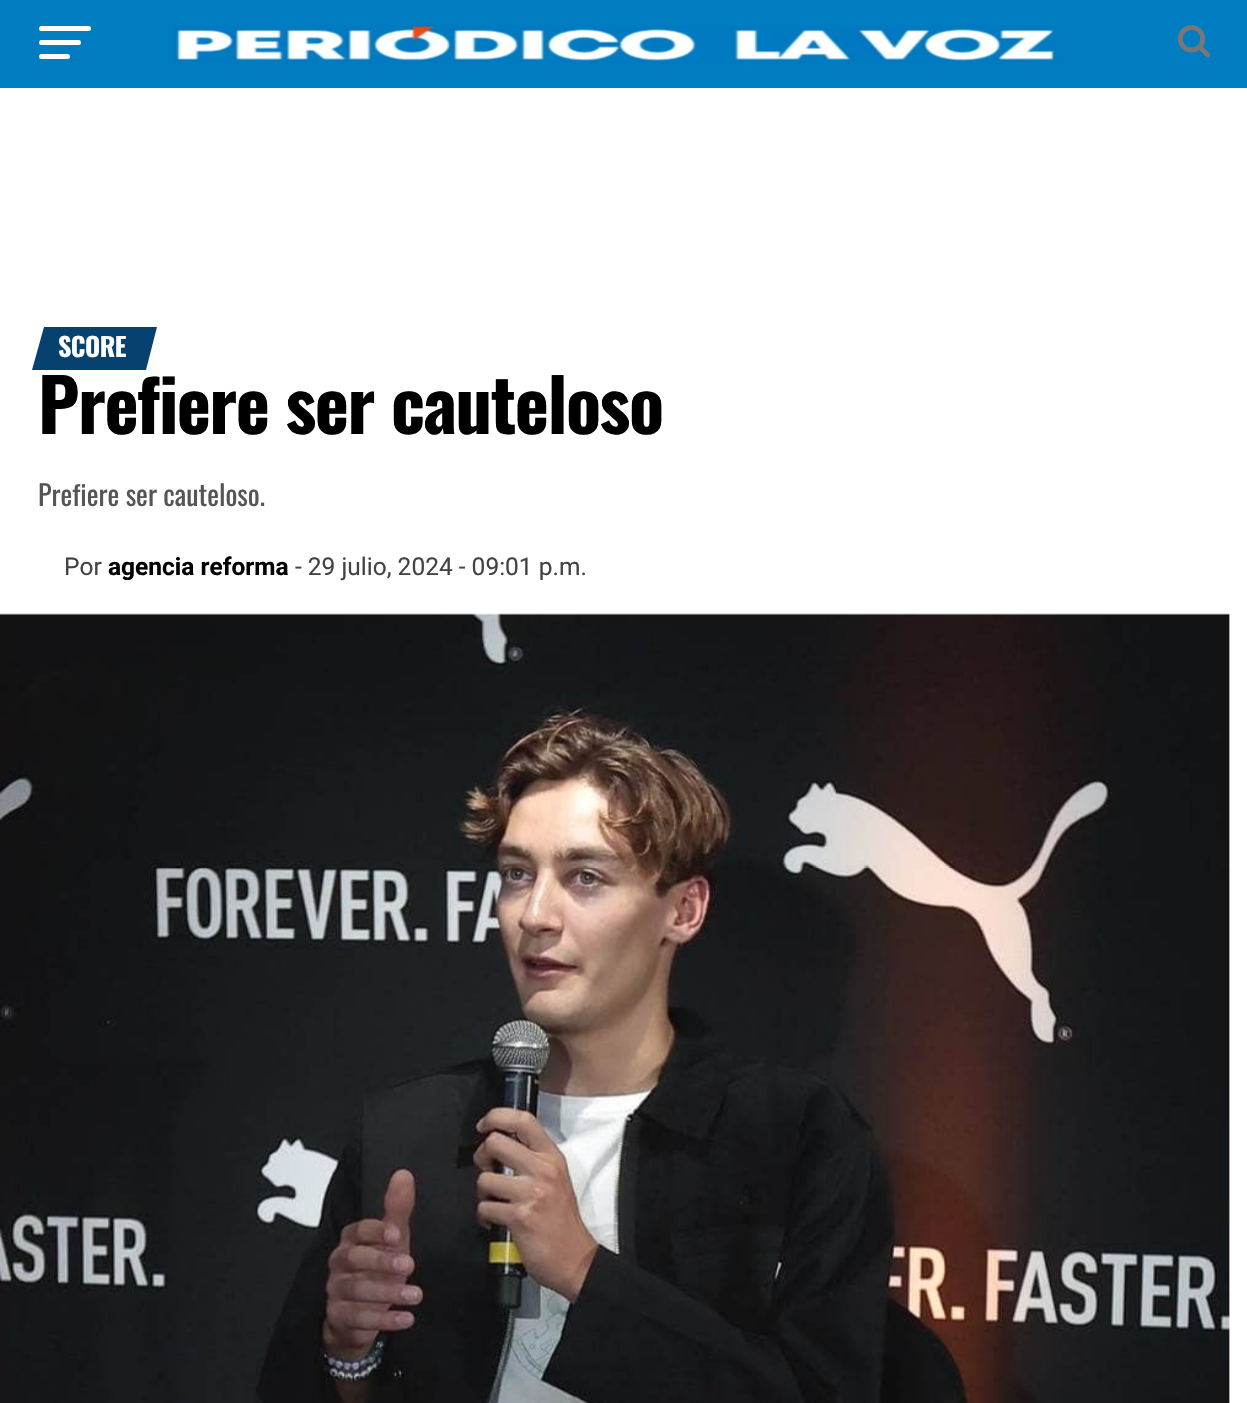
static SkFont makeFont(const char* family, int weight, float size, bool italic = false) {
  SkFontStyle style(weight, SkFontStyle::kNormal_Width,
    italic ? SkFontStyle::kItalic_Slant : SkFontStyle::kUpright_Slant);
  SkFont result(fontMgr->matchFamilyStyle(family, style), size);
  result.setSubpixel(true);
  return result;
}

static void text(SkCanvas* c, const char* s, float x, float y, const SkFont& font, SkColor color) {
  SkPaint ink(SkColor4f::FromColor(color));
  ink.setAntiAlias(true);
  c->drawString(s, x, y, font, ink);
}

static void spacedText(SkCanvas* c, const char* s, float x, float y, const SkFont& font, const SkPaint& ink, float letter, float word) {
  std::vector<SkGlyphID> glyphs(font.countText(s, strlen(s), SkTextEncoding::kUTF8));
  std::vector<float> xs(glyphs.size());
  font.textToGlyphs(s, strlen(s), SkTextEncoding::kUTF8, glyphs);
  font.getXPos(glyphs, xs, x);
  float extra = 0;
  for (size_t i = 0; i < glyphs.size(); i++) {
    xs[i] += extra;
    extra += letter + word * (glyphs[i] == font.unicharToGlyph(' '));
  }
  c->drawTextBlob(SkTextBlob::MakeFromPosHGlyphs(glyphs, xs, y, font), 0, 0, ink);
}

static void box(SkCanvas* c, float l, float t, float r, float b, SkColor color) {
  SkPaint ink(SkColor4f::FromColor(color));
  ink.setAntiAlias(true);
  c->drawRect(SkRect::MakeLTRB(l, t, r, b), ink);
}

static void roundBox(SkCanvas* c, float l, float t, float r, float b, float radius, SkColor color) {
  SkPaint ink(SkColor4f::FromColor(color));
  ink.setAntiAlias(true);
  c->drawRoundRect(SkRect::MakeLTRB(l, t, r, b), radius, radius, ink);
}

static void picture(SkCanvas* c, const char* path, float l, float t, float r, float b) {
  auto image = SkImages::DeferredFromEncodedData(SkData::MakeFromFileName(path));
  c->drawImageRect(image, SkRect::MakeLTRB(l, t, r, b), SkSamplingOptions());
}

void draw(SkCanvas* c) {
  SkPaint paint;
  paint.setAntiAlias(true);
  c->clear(0xffffffff);
  box(c, 0, 0, 1247, 88, 0xff007cc1);
  roundBox(c, 39, 26, 91, 31, 2.5f, 0xffffffff);
  roundBox(c, 39, 40, 81, 45, 2.5f, 0xffffffff);
  roundBox(c, 39, 54, 70, 59, 2.5f, 0xffffffff);
  picture(c, "img_01.png", 174, 25, 1057, 64);
  picture(c, "img_02.png", 1177, 25, 1211, 58);
  paint.setColor(0xff074170);
  c->drawPath(SkPathBuilder().moveTo(44, 327).lineTo(157, 327).lineTo(146, 370).lineTo(32, 370).close().detach(), paint);
  SkFont face1 = makeFont("Oswald", 700, 26);
  paint.setColor(0xffffffff);
  spacedText(c, "SCORE", 58, 357, face1, paint, -0.5f, 0);
  SkFont face2 = makeFont("Oswald", 700, 72.75f);
  paint.setColor(0xff000000);
  spacedText(c, "Prefiere ser cauteloso", 38, 434, face2, paint, -1.5f, 0);
  SkFont face3 = makeFont("Oswald", 400, 28);
  text(c, "Prefiere ser cauteloso.", 38, 506, face3, 0xff555555);
  SkFont face4 = makeFont("Roboto", 400, 24.5f);
  text(c, "Por", 64, 575, face4, 0xff424242);
  SkFont face5 = makeFont("Roboto", 700, 24.5f);
  text(c, "agencia reforma", 108, 575, face5, 0xff000000);
  text(c, "- 29 julio, 2024 - 09:01 p.m.", 295, 575, face4, 0xff424242);
  picture(c, "img_03.png", 0, 613, 1230, 1403);
}
